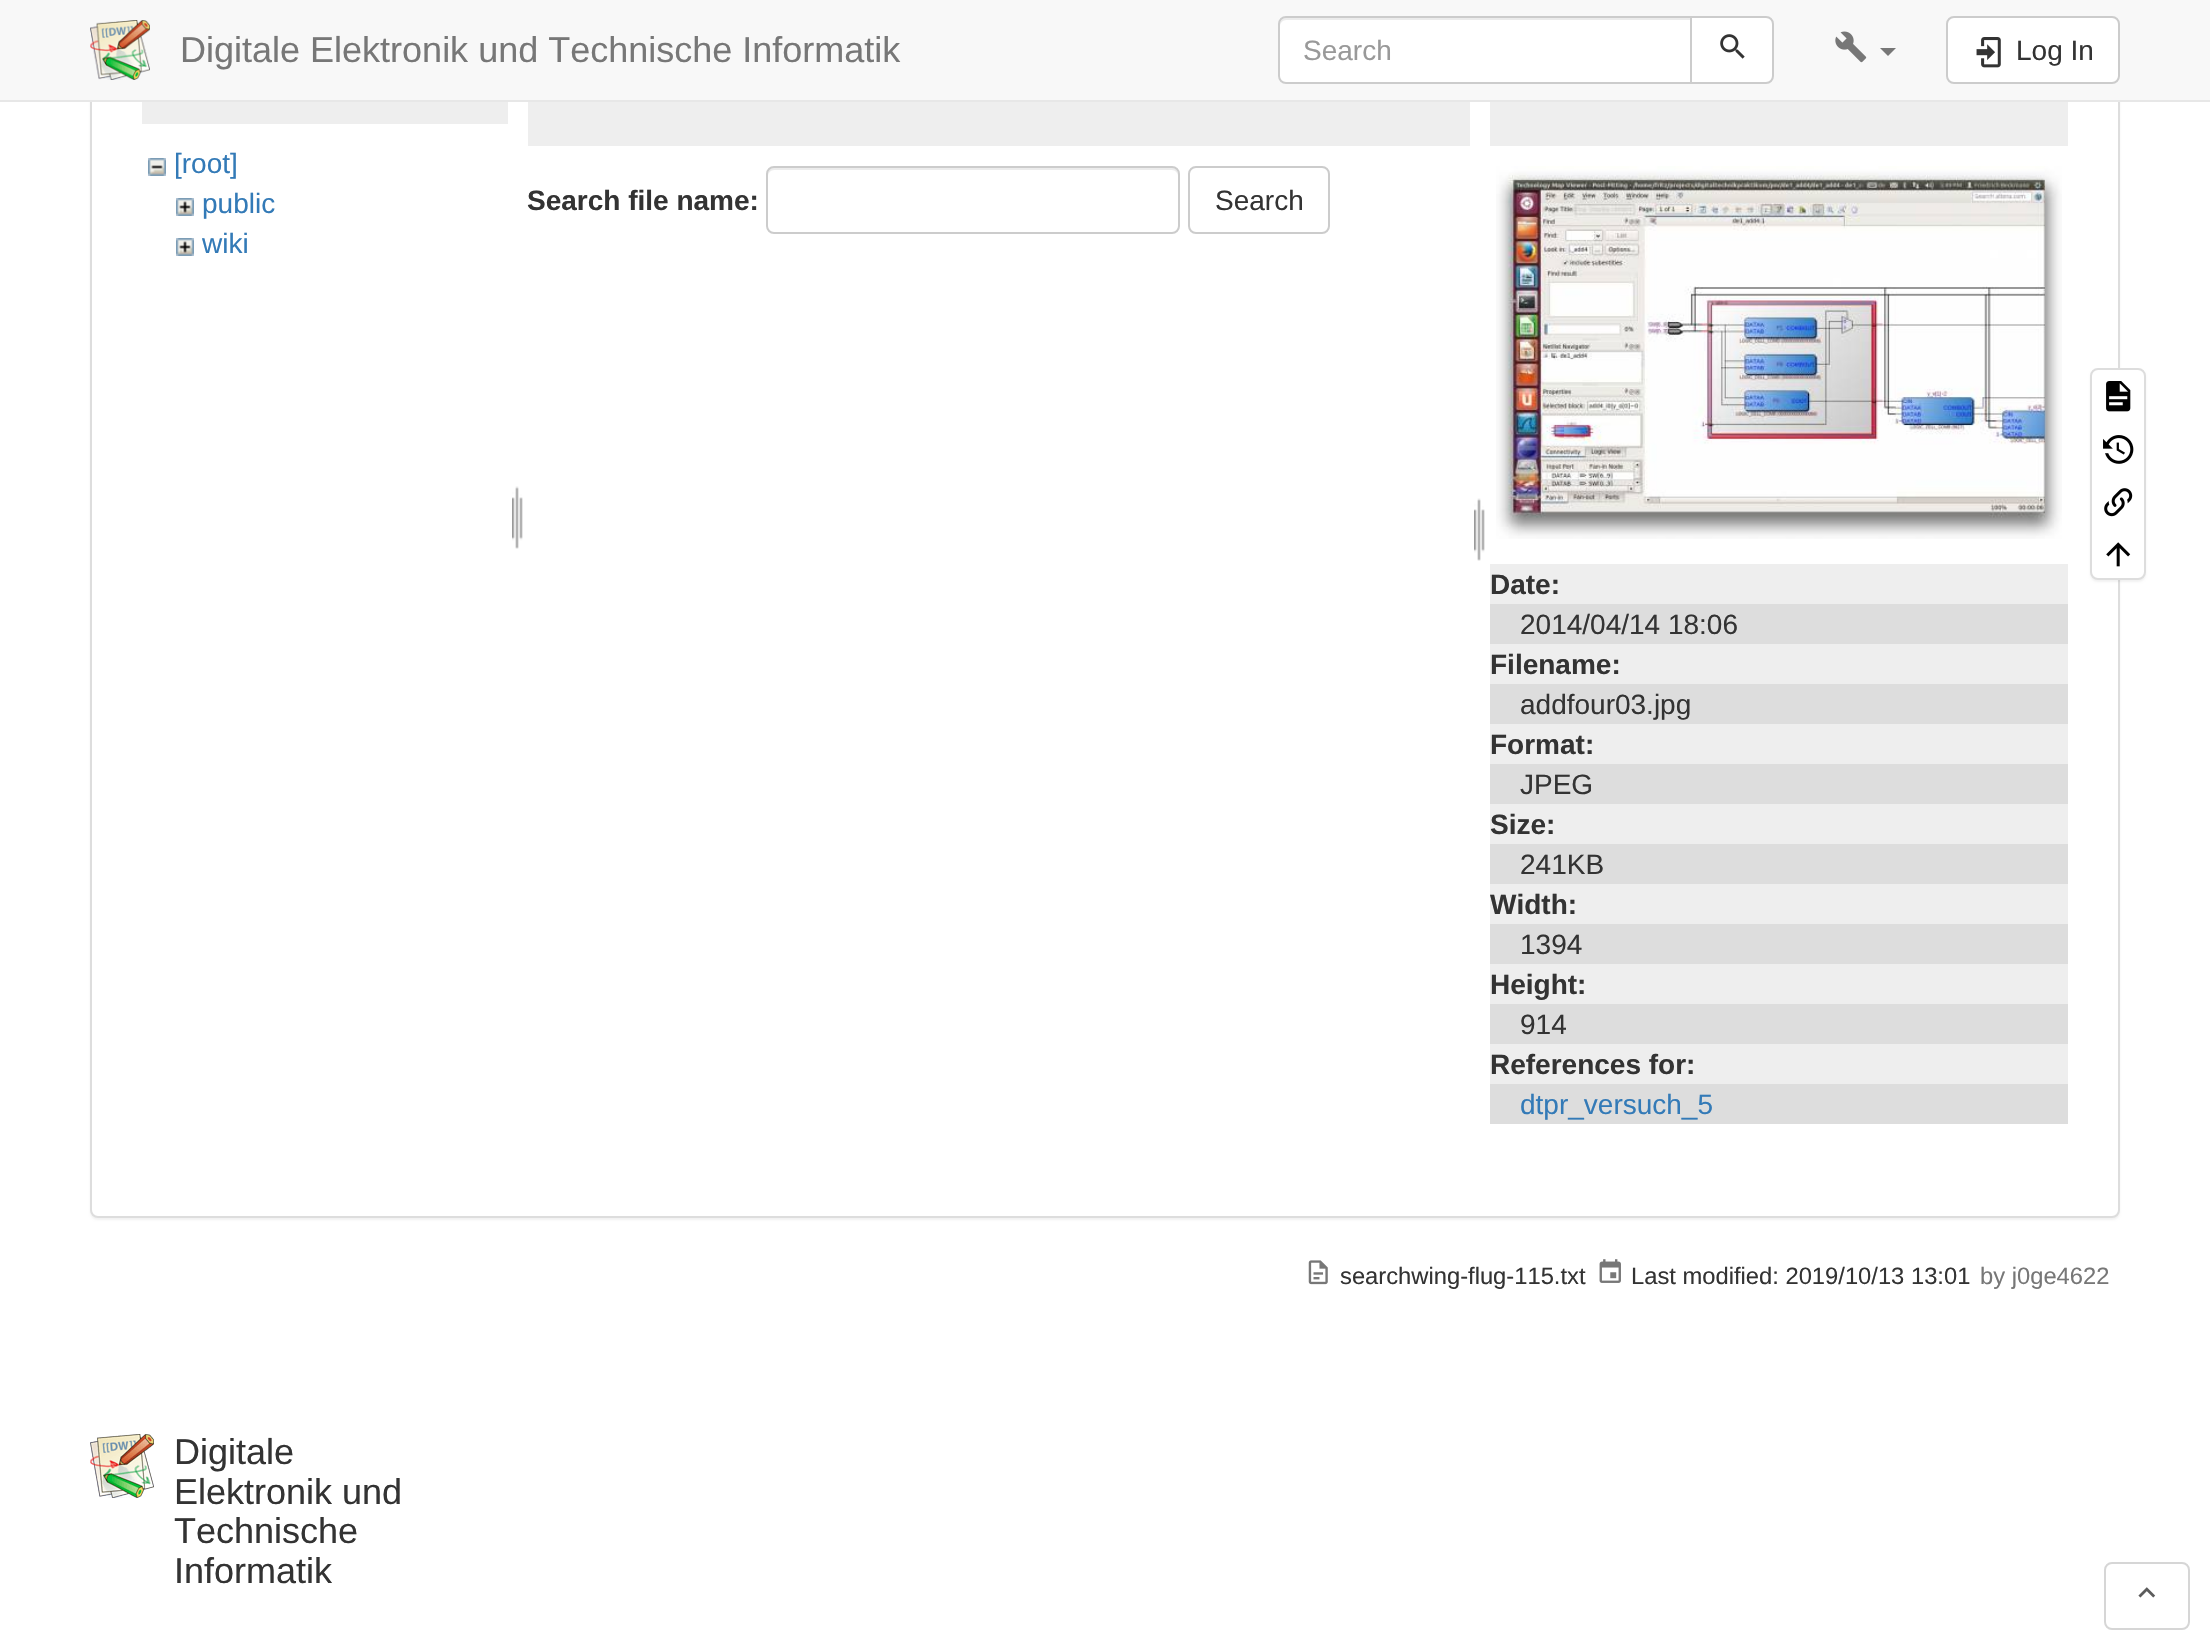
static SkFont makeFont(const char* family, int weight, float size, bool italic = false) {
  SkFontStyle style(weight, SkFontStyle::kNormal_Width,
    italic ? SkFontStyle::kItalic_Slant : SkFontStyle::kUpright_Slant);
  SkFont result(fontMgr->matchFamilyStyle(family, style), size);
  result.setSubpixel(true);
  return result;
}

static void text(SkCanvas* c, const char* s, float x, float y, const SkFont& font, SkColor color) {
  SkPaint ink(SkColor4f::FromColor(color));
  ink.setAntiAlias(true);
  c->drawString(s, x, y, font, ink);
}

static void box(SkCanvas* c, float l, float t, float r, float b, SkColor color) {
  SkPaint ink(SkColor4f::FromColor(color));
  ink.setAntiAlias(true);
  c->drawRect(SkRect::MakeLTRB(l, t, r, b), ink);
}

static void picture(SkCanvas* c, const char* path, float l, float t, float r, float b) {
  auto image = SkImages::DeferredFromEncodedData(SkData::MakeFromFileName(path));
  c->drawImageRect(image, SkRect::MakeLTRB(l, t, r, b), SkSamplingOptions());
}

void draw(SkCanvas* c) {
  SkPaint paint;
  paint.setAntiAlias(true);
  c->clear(0xffffffff);
  paint.setColor(0x0d000000);
  paint.setMaskFilter(SkMaskFilter::MakeBlur(kNormal_SkBlurStyle, 1));
  c->drawRoundRect(SkRect::MakeLTRB(90, -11, 2120, 1220), 8, 8, paint);
  paint.setMaskFilter(nullptr);
  paint.setColor(0xffffffff);
  c->drawRoundRect(SkRect::MakeLTRB(91, -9, 2119, 1217), 7, 7, paint);
  paint.setStyle(SkPaint::kStroke_Style);
  paint.setStrokeWidth(2);
  paint.setColor(0xffdddddd);
  c->drawRoundRect(SkRect::MakeLTRB(91, -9, 2119, 1217), 7, 7, paint);
  box(c, 0, 0, 2210, 100, 0xfff8f8f8);
  box(c, 0, 100, 2210, 102, 0xffe7e7e7);
  picture(c, "img_01.png", 90, 20, 150, 80);
  SkFont face1 = makeFont("Liberation Sans", 400, 36);
  text(c, "Digitale Elektronik und Technische Informatik", 180, 62, face1, 0xff777777);
  paint.setStyle(SkPaint::kFill_Style);
  paint.setColor(0xffffffff);
  c->drawPath(SkPathBuilder().moveTo(1286, 16).lineTo(1692, 16).lineTo(1692, 84).lineTo(1286, 84).cubicTo(1281.5f, 84, 1278, 80.5f, 1278, 76).lineTo(1278, 24).cubicTo(1278, 19.5f, 1281.5f, 16, 1286, 16).close().detach(), paint);
  paint.setColor(0xffececec);
  c->drawPath(SkPathBuilder().moveTo(1286, 20).lineTo(1690, 20).lineTo(1690, 18).lineTo(1286, 18).cubicTo(1283, 18, 1280, 21, 1280, 24).lineTo(1280, 26).cubicTo(1280, 23, 1283, 20, 1286, 20).close().detach(), paint);
  paint.setStyle(SkPaint::kStroke_Style);
  paint.setColor(0xffcccccc);
  c->drawPath(SkPathBuilder().moveTo(1286, 17).lineTo(1691, 17).lineTo(1691, 83).lineTo(1286, 83).cubicTo(1282, 83, 1279, 80, 1279, 76).lineTo(1279, 24).cubicTo(1279, 20, 1282, 17, 1286, 17).close().detach(), paint);
  SkFont face2 = makeFont("Liberation Sans", 400, 28);
  text(c, "Search", 1303, 60, face2, 0xff999999);
  paint.setStyle(SkPaint::kFill_Style);
  paint.setColor(0xffffffff);
  c->drawPath(SkPathBuilder().moveTo(1691, 17).lineTo(1766, 17).cubicTo(1770, 17, 1773, 20, 1773, 24).lineTo(1773, 76).cubicTo(1773, 80, 1770, 83, 1766, 83).lineTo(1691, 83).close().detach(), paint);
  paint.setStyle(SkPaint::kStroke_Style);
  paint.setColor(0xffcccccc);
  c->drawPath(SkPathBuilder().moveTo(1691, 17).lineTo(1766, 17).cubicTo(1770, 17, 1773, 20, 1773, 24).lineTo(1773, 76).cubicTo(1773, 80, 1770, 83, 1766, 83).lineTo(1691, 83).close().detach(), paint);
  picture(c, "img_02.png", 1720, 34, 1745, 59);
  picture(c, "img_03.png", 1835, 31, 1867, 63);
  paint.setStyle(SkPaint::kFill_Style);
  paint.setColor(0xff777777);
  c->drawPath(SkPathBuilder().moveTo(1880, 48).lineTo(1896, 48).lineTo(1888, 56).close().detach(), paint);
  paint.setColor(0xffffffff);
  c->drawRoundRect(SkRect::MakeLTRB(1947, 17, 2119, 83), 7, 7, paint);
  paint.setStyle(SkPaint::kStroke_Style);
  paint.setColor(0xffcccccc);
  c->drawRoundRect(SkRect::MakeLTRB(1947, 17, 2119, 83), 7, 7, paint);
  picture(c, "img_04.png", 1976, 37, 2001, 68);
  text(c, "Log In", 2016, 60, face2, 0xff333333);
  box(c, 142, 102, 508, 124, 0xffeeeeee);
  picture(c, "img_05.png", 148, 158, 166, 176);
  text(c, "[root]", 174, 173, face2, 0xff337ab7);
  picture(c, "img_06.png", 176, 198, 194, 216);
  text(c, "public", 202, 213, face2, 0xff337ab7);
  picture(c, "img_06.png", 176, 238, 194, 256);
  text(c, "wiki", 202, 253, face2, 0xff337ab7);
  picture(c, "img_07.png", 512, 486, 523, 549);
  box(c, 528, 102, 1470, 146, 0xffeeeeee);
  SkFont face3 = makeFont("Liberation Sans", 700, 28);
  text(c, "Search file name:", 527, 210, face3, 0xff333333);
  paint.setStyle(SkPaint::kFill_Style);
  paint.setColor(0xffececec);
  c->drawPath(SkPathBuilder().moveTo(774, 170).lineTo(1172, 170).cubicTo(1175, 170, 1178, 173, 1178, 176).cubicTo(1178, 172, 1177, 168, 1172, 168).lineTo(774, 168).cubicTo(769, 168, 768, 172, 768, 176).cubicTo(768, 173, 771, 170, 774, 170).close().detach(), paint);
  paint.setStyle(SkPaint::kStroke_Style);
  paint.setColor(0xffcccccc);
  c->drawRoundRect(SkRect::MakeLTRB(767, 167, 1179, 233), 7, 7, paint);
  c->drawRoundRect(SkRect::MakeLTRB(1189, 167, 1329, 233), 7, 7, paint);
  text(c, "Search", 1215, 210, face2, 0xff333333);
  picture(c, "img_07.png", 1474, 498, 1485, 561);
  box(c, 1490, 102, 2068, 146, 0xffeeeeee);
  picture(c, "img_08.png", 1496, 166, 2062, 539);
  box(c, 1490, 564, 2068, 604, 0xffeeeeee);
  text(c, "Date:", 1490, 594, face3, 0xff333333);
  box(c, 1490, 604, 2068, 644, 0xffdddddd);
  text(c, "2014/04/14 18:06", 1520, 634, face2, 0xff333333);
  box(c, 1490, 644, 2068, 684, 0xffeeeeee);
  text(c, "Filename:", 1490, 674, face3, 0xff333333);
  box(c, 1490, 684, 2068, 724, 0xffdddddd);
  text(c, "addfour03.jpg", 1520, 714, face2, 0xff333333);
  box(c, 1490, 724, 2068, 764, 0xffeeeeee);
  text(c, "Format:", 1490, 754, face3, 0xff333333);
  box(c, 1490, 764, 2068, 804, 0xffdddddd);
  text(c, "JPEG", 1520, 794, face2, 0xff333333);
  box(c, 1490, 804, 2068, 844, 0xffeeeeee);
  text(c, "Size:", 1490, 834, face3, 0xff333333);
  box(c, 1490, 844, 2068, 884, 0xffdddddd);
  text(c, "241KB", 1520, 874, face2, 0xff333333);
  box(c, 1490, 884, 2068, 924, 0xffeeeeee);
  text(c, "Width:", 1490, 914, face3, 0xff333333);
  box(c, 1490, 924, 2068, 964, 0xffdddddd);
  text(c, "1394", 1520, 954, face2, 0xff333333);
  box(c, 1490, 964, 2068, 1004, 0xffeeeeee);
  text(c, "Height:", 1490, 994, face3, 0xff333333);
  box(c, 1490, 1004, 2068, 1044, 0xffdddddd);
  text(c, "914", 1520, 1034, face2, 0xff333333);
  box(c, 1490, 1044, 2068, 1084, 0xffeeeeee);
  text(c, "References for:", 1490, 1074, face3, 0xff333333);
  box(c, 1490, 1084, 2068, 1124, 0xffdddddd);
  text(c, "dtpr_versuch_5", 1520, 1114, face2, 0xff337ab7);
  paint.setStyle(SkPaint::kFill_Style);
  paint.setColor(0x0d000000);
  paint.setMaskFilter(SkMaskFilter::MakeBlur(kNormal_SkBlurStyle, 1));
  c->drawRoundRect(SkRect::MakeLTRB(2090, 370, 2146, 582), 8, 8, paint);
  paint.setMaskFilter(nullptr);
  paint.setColor(0xffffffff);
  c->drawRoundRect(SkRect::MakeLTRB(2091, 369, 2145, 579), 7, 7, paint);
  paint.setStyle(SkPaint::kStroke_Style);
  paint.setColor(0xffdddddd);
  c->drawRoundRect(SkRect::MakeLTRB(2091, 369, 2145, 579), 7, 7, paint);
  picture(c, "img_09.png", 2106, 381, 2131, 412);
  picture(c, "img_10.png", 2103, 435, 2134, 464);
  picture(c, "img_11.png", 2104, 488, 2133, 517);
  picture(c, "img_12.png", 2106, 542, 2131, 567);
  picture(c, "img_13.png", 1308, 1260, 1328, 1285);
  SkFont face4 = makeFont("Liberation Sans", 400, 23.75f);
  text(c, "searchwing-flug-115.txt", 1340, 1284, face4, 0xff333333);
  picture(c, "img_14.png", 1599, 1259, 1621, 1283);
  text(c, "Last modified: 2019/10/13 13:01", 1631, 1284, face4, 0xff333333);
  text(c, "by j0ge4622", 1980, 1284, face4, 0xff777777);
  picture(c, "img_15.png", 90, 1434, 154, 1498);
  text(c, "Digitale", 174, 1464, face1, 0xff333333);
  text(c, "Elektronik und", 174, 1504, face1, 0xff333333);
  text(c, "Technische", 174, 1543, face1, 0xff333333);
  text(c, "Informatik", 174, 1583, face1, 0xff333333);
  paint.setColor(0xffd6d6d6);
  c->drawRoundRect(SkRect::MakeLTRB(2105, 1563, 2189, 1629), 7, 7, paint);
  picture(c, "img_16.png", 2138, 1587, 2156, 1598);
}
